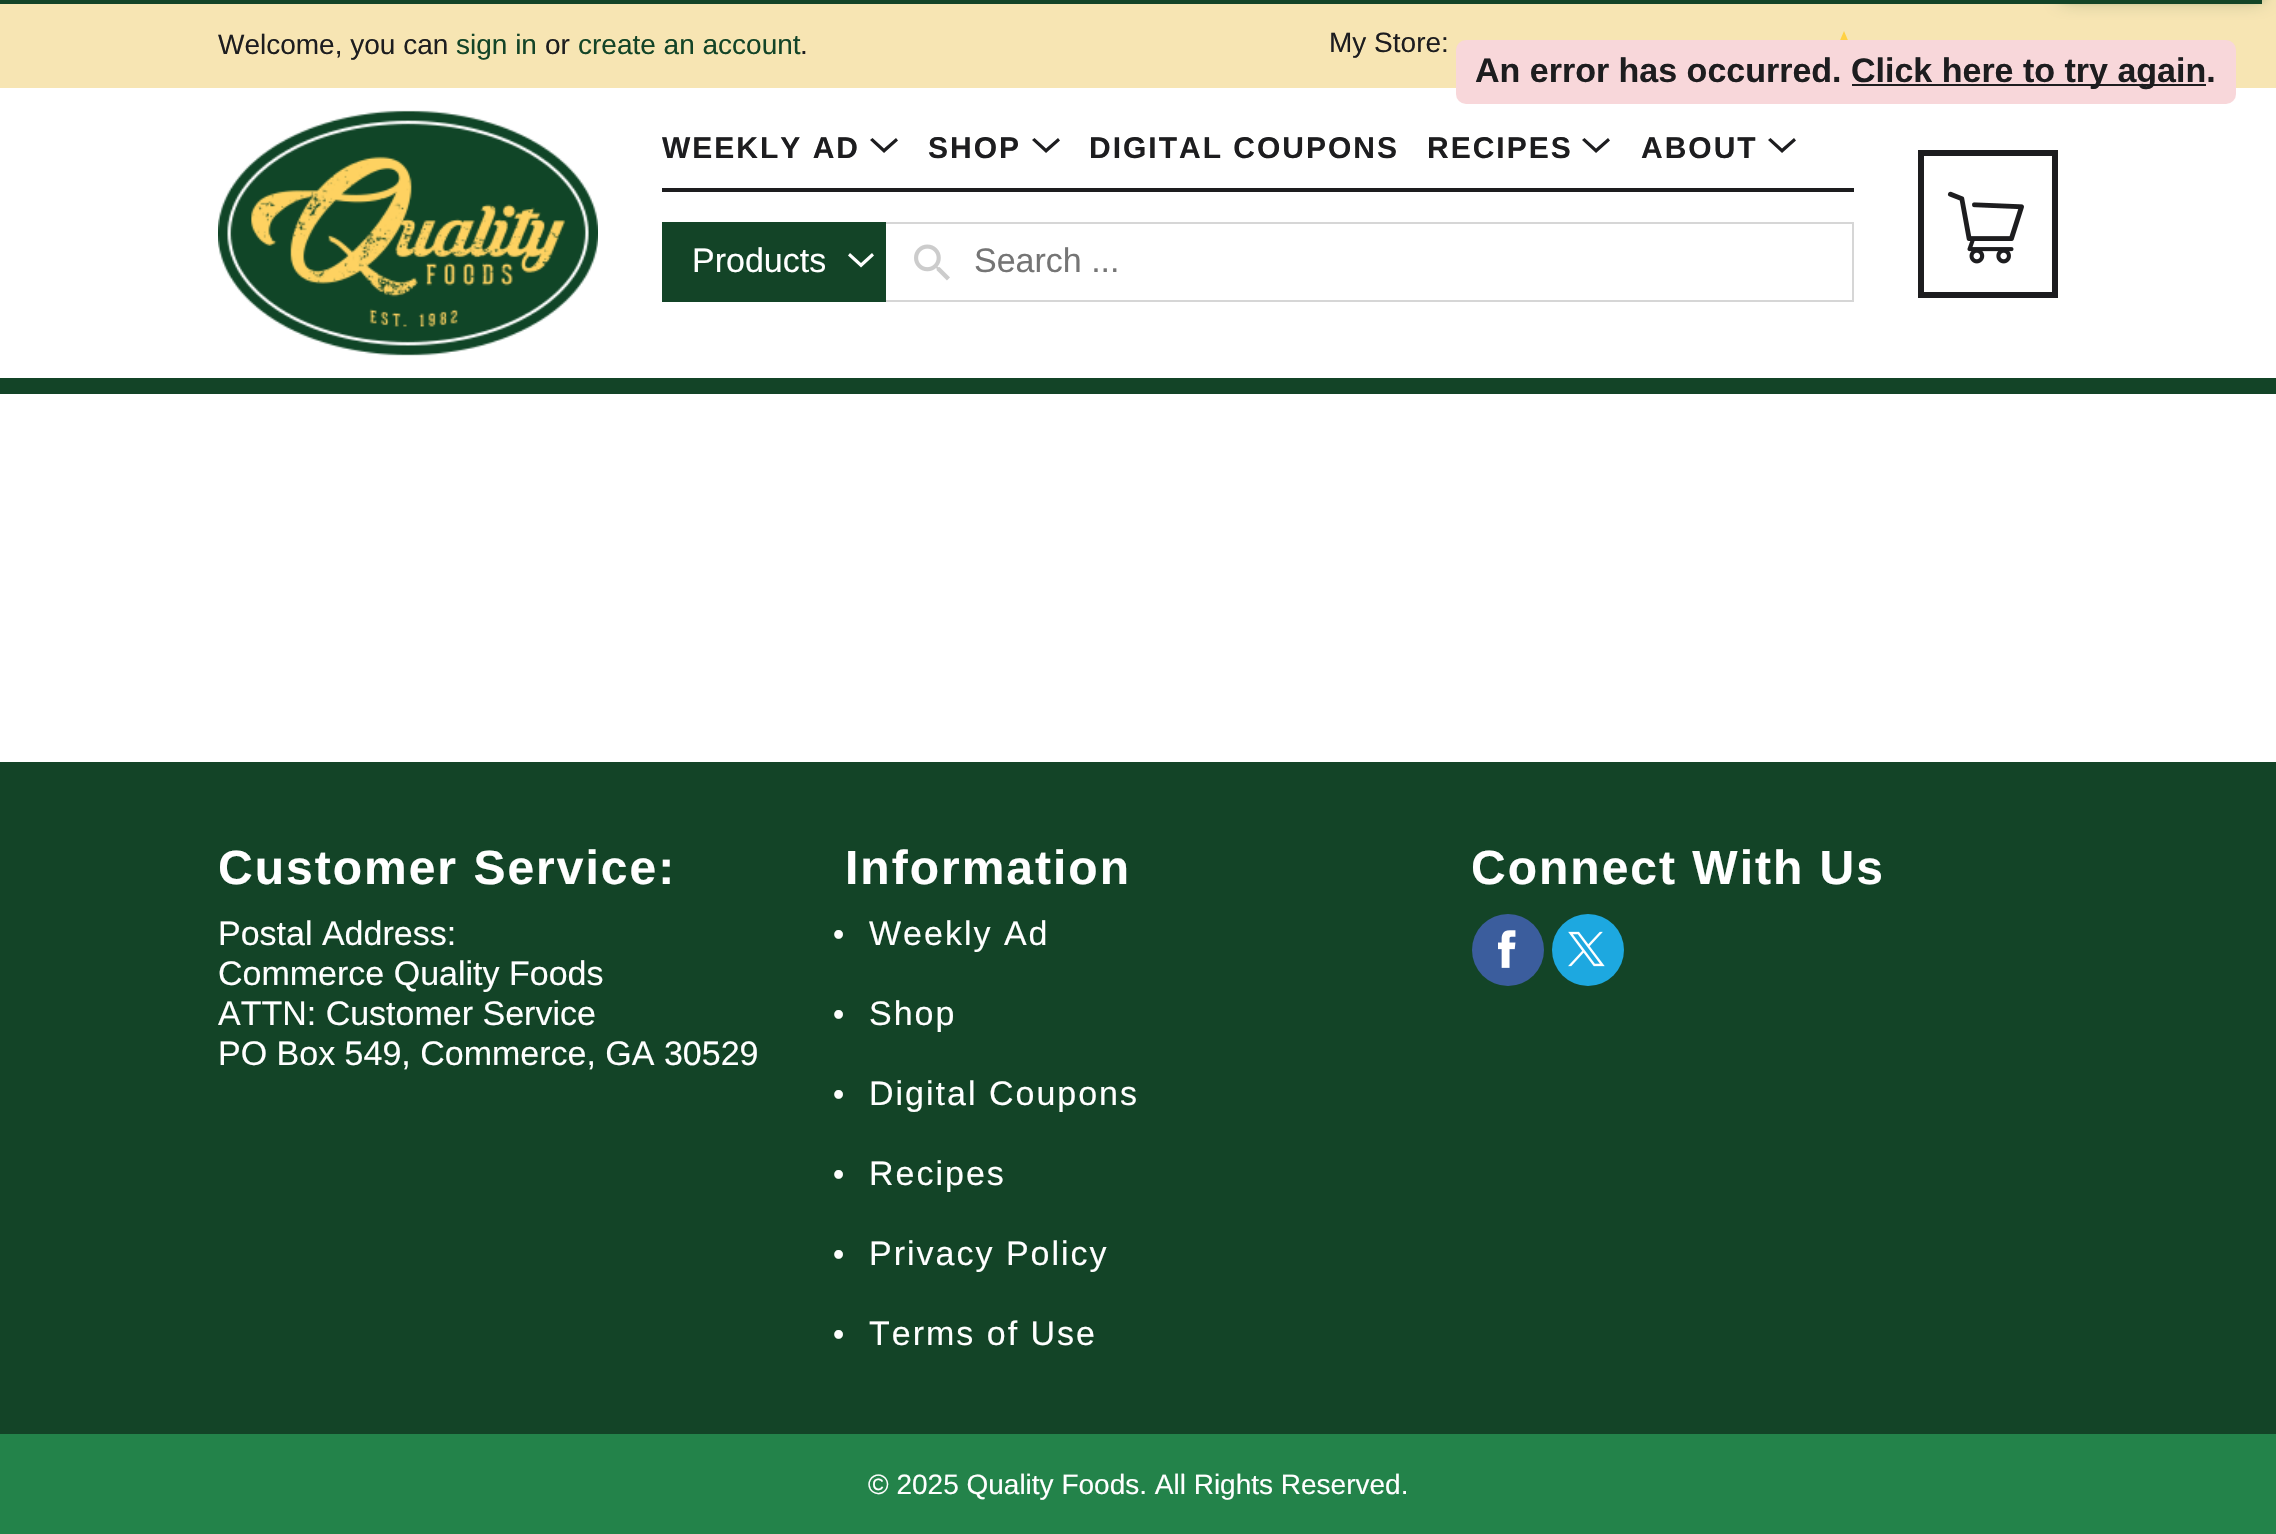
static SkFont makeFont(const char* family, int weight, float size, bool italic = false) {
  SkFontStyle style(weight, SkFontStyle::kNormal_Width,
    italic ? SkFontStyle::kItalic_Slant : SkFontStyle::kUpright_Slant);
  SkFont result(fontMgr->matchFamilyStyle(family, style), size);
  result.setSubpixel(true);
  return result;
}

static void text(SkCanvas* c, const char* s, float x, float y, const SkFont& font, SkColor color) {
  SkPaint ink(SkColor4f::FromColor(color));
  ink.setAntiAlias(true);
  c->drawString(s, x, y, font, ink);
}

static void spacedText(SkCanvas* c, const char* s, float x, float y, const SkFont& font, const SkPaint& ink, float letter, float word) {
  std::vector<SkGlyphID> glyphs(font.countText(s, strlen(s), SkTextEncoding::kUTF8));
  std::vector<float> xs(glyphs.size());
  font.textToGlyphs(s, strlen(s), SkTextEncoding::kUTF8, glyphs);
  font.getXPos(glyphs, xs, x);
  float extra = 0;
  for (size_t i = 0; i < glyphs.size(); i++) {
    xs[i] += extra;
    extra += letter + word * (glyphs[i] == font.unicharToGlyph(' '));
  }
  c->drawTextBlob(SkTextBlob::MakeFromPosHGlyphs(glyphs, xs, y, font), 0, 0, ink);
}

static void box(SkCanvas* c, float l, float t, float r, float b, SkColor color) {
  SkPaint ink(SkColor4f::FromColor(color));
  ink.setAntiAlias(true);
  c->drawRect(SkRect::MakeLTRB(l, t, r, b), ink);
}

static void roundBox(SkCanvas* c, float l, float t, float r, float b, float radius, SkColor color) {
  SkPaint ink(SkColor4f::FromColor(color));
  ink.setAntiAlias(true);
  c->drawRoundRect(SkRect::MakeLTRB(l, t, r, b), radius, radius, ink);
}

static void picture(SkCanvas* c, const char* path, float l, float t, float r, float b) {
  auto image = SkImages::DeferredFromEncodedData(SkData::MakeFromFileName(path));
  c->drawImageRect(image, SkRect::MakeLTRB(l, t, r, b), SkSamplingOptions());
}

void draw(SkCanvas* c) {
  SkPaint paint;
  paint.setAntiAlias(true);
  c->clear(0xffffffff);
  box(c, 0, 378, 2276, 394, 0xff134427);
  box(c, 0, 0, 2276, 88, 0xfff7e5b3);
  SkFont face1 = makeFont("Liberation Sans", 400, 28);
  text(c, "Welcome, you can", 218, 54, face1, 0xff1d1d1f);
  text(c, "sign in", 456, 54, face1, 0xff134427);
  text(c, "or", 545, 54, face1, 0xff1d1d1f);
  text(c, "create an account", 578, 54, face1, 0xff134427);
  text(c, ".", 800, 54, face1, 0xff1d1d1f);
  text(c, "My Store:", 1329, 52, face1, 0xff1d1d1f);
  paint.setColor(0xffffd144);
  c->drawPath(SkPathBuilder().moveTo(1844, 55).lineTo(1834, 61).lineTo(1837, 50).lineTo(1828, 42.5f).lineTo(1839.5f, 41.5f).lineTo(1844, 31).lineTo(1848.5f, 41.5f).lineTo(1860, 42.5f).lineTo(1851, 50).lineTo(1854, 61).close().detach(), paint);
  picture(c, "img_01.png", 218, 110, 598, 356);
  box(c, 662, 188, 1854, 192, 0xff1d1d1f);
  SkFont face2 = makeFont("Liberation Sans", 700, 30);
  paint.setColor(0xff1d1d1f);
  spacedText(c, "WEEKLY AD", 662, 158, face2, paint, 2, 0);
  c->drawPath(SkPathBuilder().moveTo(883, 152).lineTo(870, 140).lineTo(872.5f, 138).lineTo(884, 148.5f).lineTo(896, 138).lineTo(898, 140.5f).lineTo(884, 153).close().detach(), paint);
  spacedText(c, "SHOP", 928, 158, face2, paint, 2, 0);
  c->drawPath(SkPathBuilder().moveTo(1045, 152).lineTo(1032, 140).lineTo(1034.5f, 138).lineTo(1046, 148.5f).lineTo(1058, 138).lineTo(1060, 140.5f).lineTo(1046, 153).close().detach(), paint);
  spacedText(c, "DIGITAL COUPONS", 1089, 158, face2, paint, 2, 0);
  spacedText(c, "RECIPES", 1427, 158, face2, paint, 2, 0);
  c->drawPath(SkPathBuilder().moveTo(1595, 152).lineTo(1582, 140).lineTo(1584.5f, 138).lineTo(1596, 148.5f).lineTo(1608, 138).lineTo(1610, 140.5f).lineTo(1596, 153).close().detach(), paint);
  spacedText(c, "ABOUT", 1641, 158, face2, paint, 2, 0);
  c->drawPath(SkPathBuilder().moveTo(1781, 152).lineTo(1768, 140).lineTo(1770.5f, 138).lineTo(1782, 148.5f).lineTo(1794, 138).lineTo(1796, 140.5f).lineTo(1782, 153).close().detach(), paint);
  box(c, 662, 222, 886, 302, 0xff134427);
  SkFont face3 = makeFont("Liberation Sans", 400, 34);
  text(c, "Products", 692, 272, face3, 0xffffffff);
  paint.setColor(0xffffffff);
  c->drawPath(SkPathBuilder().moveTo(860, 266.5f).lineTo(848, 255.5f).lineTo(850, 253).lineTo(861, 263).lineTo(872, 253).lineTo(874, 255.5f).lineTo(861, 267.5f).close().detach(), paint);
  picture(c, "img_02.png", 914, 244, 950, 281);
  box(c, 886, 222, 1854, 224, 0xffd6d6d6);
  box(c, 1852, 222, 1854, 302, 0xffd6d6d6);
  box(c, 886, 300, 1854, 302, 0xffd6d6d6);
  text(c, "Search ...", 974, 272, face3, 0xff757575);
  paint.setStyle(SkPaint::kStroke_Style);
  paint.setStrokeWidth(6);
  paint.setColor(0xff1d1d1f);
  c->drawRect(SkRect::MakeLTRB(1921, 153, 2055, 295), paint);
  picture(c, "img_03.png", 1947, 191, 2024, 264);
  box(c, 0, 762, 2276, 1434, 0xff134427);
  SkFont face4 = makeFont("Liberation Sans", 700, 48);
  paint.setStyle(SkPaint::kFill_Style);
  paint.setColor(0xffffffff);
  spacedText(c, "Customer Service:", 218, 884, face4, paint, 2, 0);
  text(c, "Postal Address:", 218, 945, face3, 0xffffffff);
  text(c, "Commerce Quality Foods", 218, 985, face3, 0xffffffff);
  text(c, "ATTN: Customer Service", 218, 1025, face3, 0xffffffff);
  text(c, "PO Box 549, Commerce, GA 30529", 218, 1065, face3, 0xffffffff);
  spacedText(c, "Information", 845, 884, face4, paint, 2, 0);
  SkFont face5 = makeFont("Liberation Sans", 400, 32);
  text(c, "•", 833, 945, face5, 0xffffffff);
  spacedText(c, "Weekly Ad", 869, 945, face3, paint, 2, 0);
  text(c, "•", 833, 1025, face5, 0xffffffff);
  spacedText(c, "Shop", 869, 1025, face3, paint, 2, 0);
  text(c, "•", 833, 1105, face5, 0xffffffff);
  spacedText(c, "Digital Coupons", 869, 1105, face3, paint, 2, 0);
  text(c, "•", 833, 1185, face5, 0xffffffff);
  spacedText(c, "Recipes", 869, 1185, face3, paint, 2, 0);
  text(c, "•", 833, 1265, face5, 0xffffffff);
  spacedText(c, "Privacy Policy", 869, 1265, face3, paint, 2, 0);
  text(c, "•", 833, 1345, face5, 0xffffffff);
  spacedText(c, "Terms of Use", 869, 1345, face3, paint, 2, 0);
  spacedText(c, "Connect With Us", 1471, 884, face4, paint, 2, 0);
  paint.setColor(0xff3b5d9d);
  c->drawCircle(1508, 950, 36, paint);
  picture(c, "img_04.png", 1498, 930, 1516, 968);
  paint.setColor(0xff1da8e0);
  c->drawCircle(1588, 950, 36, paint);
  picture(c, "img_05.png", 1568, 931, 1605, 967);
  box(c, 0, 1434, 2276, 1534, 0xff23834a);
  text(c, "© 2025 Quality Foods. All Rights Reserved.", 868, 1494, face1, 0xffffffff);
  box(c, 0, 0, 2262, 4, 0xff134427);
  paint.setColor(0xff134427);
  paint.setMaskFilter(SkMaskFilter::MakeBlur(kNormal_SkBlurStyle, 5));
  c->drawRect(SkRect::MakeLTRB(2062, -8, 2262, -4), paint);
  paint.setMaskFilter(nullptr);
  paint.setMaskFilter(SkMaskFilter::MakeBlur(kNormal_SkBlurStyle, 10));
  c->drawRect(SkRect::MakeLTRB(2062, -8, 2262, -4), paint);
  paint.setMaskFilter(nullptr);
  roundBox(c, 1456, 40, 2236, 104, 10, 0xfff8d7da);
  SkFont face6 = makeFont("Liberation Sans", 700, 34);
  text(c, "An error has occurred.", 1475, 82, face6, 0xff1d1d1f);
  box(c, 1852, 84, 2206, 86, 0xff1d1d1f);
  text(c, "Click here to try again.", 1851, 82, face6, 0xff1d1d1f);
}
